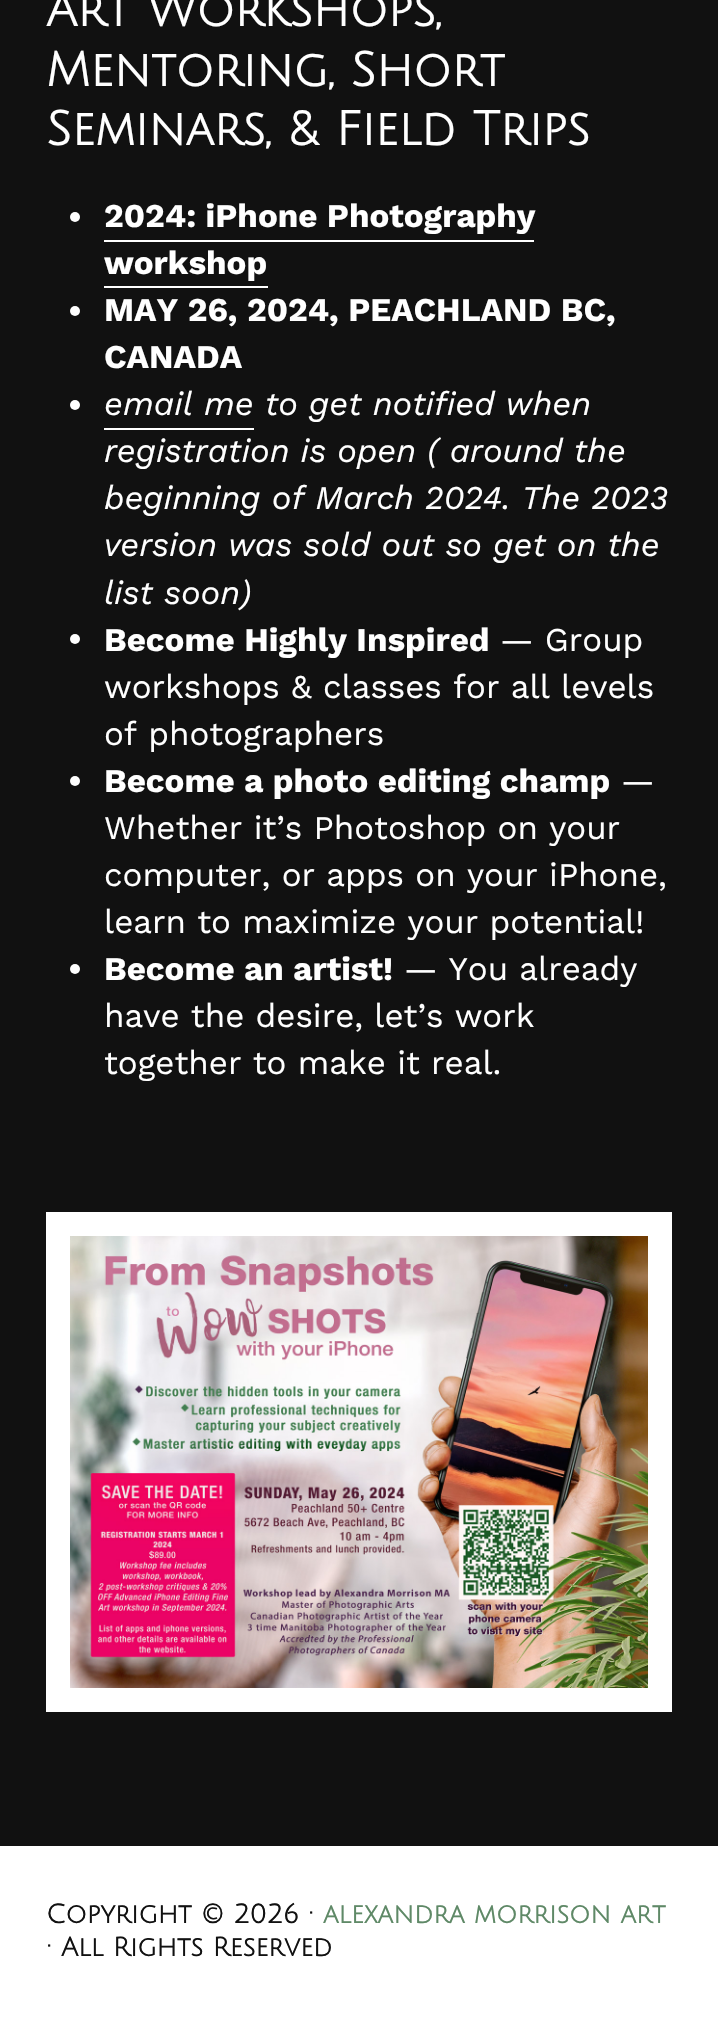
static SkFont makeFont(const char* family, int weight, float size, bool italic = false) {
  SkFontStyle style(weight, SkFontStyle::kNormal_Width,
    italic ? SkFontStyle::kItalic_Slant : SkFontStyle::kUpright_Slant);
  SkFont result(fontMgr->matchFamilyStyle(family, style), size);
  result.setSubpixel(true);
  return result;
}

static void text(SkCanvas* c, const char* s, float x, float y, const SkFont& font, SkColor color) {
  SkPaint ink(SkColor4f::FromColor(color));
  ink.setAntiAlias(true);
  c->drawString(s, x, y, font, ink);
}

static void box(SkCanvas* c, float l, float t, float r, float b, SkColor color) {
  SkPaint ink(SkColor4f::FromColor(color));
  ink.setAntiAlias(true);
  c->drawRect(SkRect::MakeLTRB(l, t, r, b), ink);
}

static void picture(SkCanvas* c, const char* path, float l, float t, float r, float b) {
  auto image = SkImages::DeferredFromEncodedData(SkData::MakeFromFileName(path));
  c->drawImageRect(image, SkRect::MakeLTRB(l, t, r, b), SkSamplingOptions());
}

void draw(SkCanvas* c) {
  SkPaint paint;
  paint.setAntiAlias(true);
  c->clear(0xffffffff);
  box(c, 0, 0, 718, 1846, 0xff111111);
  SkFont face1 = makeFont("Julius Sans One", 700, 47.1f);
  text(c, "Art Workshops,", 46, 26, face1, 0xffffffff);
  text(c, "Mentoring, Short", 46, 86, face1, 0xffffffff);
  text(c, "Seminars, & Field Trips", 46, 145, face1, 0xffffffff);
  paint.setColor(0xffffffff);
  c->drawCircle(75, 217, 5, paint);
  SkFont face2 = makeFont("Work Sans", 700, 33.1f);
  text(c, "2024: iPhone Photography", 104, 227, face2, 0xffffffff);
  box(c, 104, 240, 534, 242, 0xffffffff);
  text(c, "workshop", 104, 274, face2, 0xffffffff);
  box(c, 104, 286, 268, 288, 0xffffffff);
  c->drawCircle(75, 311, 5, paint);
  text(c, "MAY 26, 2024, PEACHLAND BC,", 104, 321, face2, 0xffffffff);
  text(c, "CANADA", 104, 368, face2, 0xffffffff);
  c->drawCircle(75, 405, 5, paint);
  SkFont face3 = makeFont("Work Sans", 400, 33.1f, true);
  text(c, "email me to get notified when", 104, 415, face3, 0xffffffff);
  box(c, 104, 428, 254, 430, 0xffffffff);
  text(c, "registration is open ( around the", 104, 462, face3, 0xffffffff);
  text(c, "beginning of March 2024. The 2023", 104, 509, face3, 0xffffffff);
  text(c, "version was sold out so get on the", 104, 556, face3, 0xffffffff);
  text(c, "list soon)", 104, 604, face3, 0xffffffff);
  c->drawCircle(75, 639, 5, paint);
  text(c, "Become Highly Inspired", 104, 651, face2, 0xffffffff);
  SkFont face4 = makeFont("Work Sans", 400, 33.1f);
  text(c, "— Group", 500, 651, face4, 0xffffffff);
  text(c, "workshops & classes for all levels", 104, 698, face4, 0xffffffff);
  text(c, "of photographers", 104, 745, face4, 0xffffffff);
  c->drawCircle(75, 781, 5, paint);
  text(c, "Become a photo editing champ", 104, 792, face2, 0xffffffff);
  text(c, "—", 621, 792, face4, 0xffffffff);
  text(c, "Whether it’s Photoshop on your", 104, 839, face4, 0xffffffff);
  text(c, "computer, or apps on your iPhone,", 104, 886, face4, 0xffffffff);
  text(c, "learn to maximize your potential!", 104, 933, face4, 0xffffffff);
  c->drawCircle(75, 969, 5, paint);
  text(c, "Become an artist!", 104, 980, face2, 0xffffffff);
  text(c, "— You already", 404, 980, face4, 0xffffffff);
  text(c, "have the desire, let’s work", 104, 1027, face4, 0xffffffff);
  text(c, "together to make it real.", 104, 1074, face4, 0xffffffff);
  box(c, 46, 1212, 672, 1712, 0xffffffff);
  picture(c, "img_01.png", 70, 1236, 648, 1688);
  SkFont face5 = makeFont("Julius Sans One", 700, 26.1f);
  text(c, "Copyright © 2026 ·", 46, 1923, face5, 0xff111111);
  text(c, "alexandra morrison art", 323, 1923, face5, 0xff5f8967);
  text(c, "· All Rights Reserved", 46, 1956, face5, 0xff111111);
}
